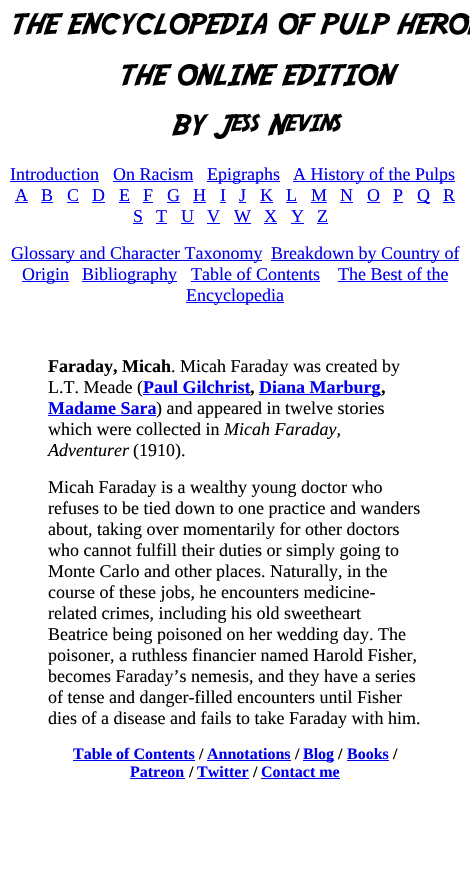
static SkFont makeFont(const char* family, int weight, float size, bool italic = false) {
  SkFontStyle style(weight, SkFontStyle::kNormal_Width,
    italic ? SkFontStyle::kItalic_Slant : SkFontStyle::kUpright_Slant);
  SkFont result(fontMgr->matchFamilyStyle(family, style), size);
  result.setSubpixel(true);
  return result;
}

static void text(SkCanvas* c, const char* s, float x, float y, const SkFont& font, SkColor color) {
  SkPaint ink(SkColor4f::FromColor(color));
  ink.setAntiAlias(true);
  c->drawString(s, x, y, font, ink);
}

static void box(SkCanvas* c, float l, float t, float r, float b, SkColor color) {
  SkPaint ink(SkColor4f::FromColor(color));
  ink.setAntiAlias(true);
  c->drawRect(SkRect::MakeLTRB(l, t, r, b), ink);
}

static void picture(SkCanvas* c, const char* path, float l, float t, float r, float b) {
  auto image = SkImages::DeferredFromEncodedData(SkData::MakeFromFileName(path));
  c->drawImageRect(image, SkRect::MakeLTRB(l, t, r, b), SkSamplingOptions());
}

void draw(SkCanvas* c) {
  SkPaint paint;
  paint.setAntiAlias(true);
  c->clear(0xffffffff);
  picture(c, "img_01.png", 13, 8, 470, 140);
  SkFont face1 = makeFont("Liberation Serif", 400, 18);
  text(c, "Introduction", 10, 180, face1, 0xff0000ee);
  box(c, 10, 181, 99, 182, 0xff0000ee);
  text(c, "On Racism", 113, 180, face1, 0xff0000ee);
  box(c, 113, 181, 193, 182, 0xff0000ee);
  box(c, 207, 181, 280, 182, 0xff0000ee);
  text(c, "Epigraphs", 207, 180, face1, 0xff0000ee);
  box(c, 293, 181, 455, 182, 0xff0000ee);
  text(c, "A History of the Pulps", 293, 180, face1, 0xff0000ee);
  text(c, "A", 15, 201, face1, 0xff0000ee);
  box(c, 15, 202, 28, 203, 0xff0000ee);
  text(c, "B", 41, 201, face1, 0xff0000ee);
  box(c, 41, 202, 53, 203, 0xff0000ee);
  text(c, "C", 67, 201, face1, 0xff0000ee);
  box(c, 67, 202, 79, 203, 0xff0000ee);
  text(c, "D", 92, 201, face1, 0xff0000ee);
  box(c, 92, 202, 105, 203, 0xff0000ee);
  text(c, "E", 119, 201, face1, 0xff0000ee);
  box(c, 119, 202, 130, 203, 0xff0000ee);
  text(c, "F", 143, 201, face1, 0xff0000ee);
  box(c, 143, 202, 153, 203, 0xff0000ee);
  text(c, "G", 167, 201, face1, 0xff0000ee);
  box(c, 167, 202, 180, 203, 0xff0000ee);
  text(c, "H", 193, 201, face1, 0xff0000ee);
  box(c, 193, 202, 206, 203, 0xff0000ee);
  text(c, "I", 220, 201, face1, 0xff0000ee);
  box(c, 220, 202, 226, 203, 0xff0000ee);
  text(c, "J", 239, 201, face1, 0xff0000ee);
  box(c, 239, 202, 246, 203, 0xff0000ee);
  text(c, "K", 260, 201, face1, 0xff0000ee);
  box(c, 260, 202, 273, 203, 0xff0000ee);
  text(c, "L", 286, 201, face1, 0xff0000ee);
  box(c, 286, 202, 297, 203, 0xff0000ee);
  text(c, "M", 311, 201, face1, 0xff0000ee);
  box(c, 311, 202, 327, 203, 0xff0000ee);
  text(c, "N", 340, 201, face1, 0xff0000ee);
  box(c, 340, 202, 353, 203, 0xff0000ee);
  text(c, "O", 367, 201, face1, 0xff0000ee);
  box(c, 367, 202, 380, 203, 0xff0000ee);
  text(c, "P", 393, 201, face1, 0xff0000ee);
  box(c, 393, 202, 403, 203, 0xff0000ee);
  box(c, 417, 202, 430, 203, 0xff0000ee);
  text(c, "Q", 417, 201, face1, 0xff0000ee);
  text(c, "R", 443, 201, face1, 0xff0000ee);
  box(c, 443, 202, 455, 203, 0xff0000ee);
  text(c, "S", 133, 222, face1, 0xff0000ee);
  box(c, 133, 223, 143, 224, 0xff0000ee);
  text(c, "T", 156, 222, face1, 0xff0000ee);
  box(c, 156, 223, 167, 224, 0xff0000ee);
  text(c, "U", 181, 222, face1, 0xff0000ee);
  box(c, 181, 223, 194, 224, 0xff0000ee);
  text(c, "V", 207, 222, face1, 0xff0000ee);
  box(c, 207, 223, 220, 224, 0xff0000ee);
  text(c, "W", 234, 222, face1, 0xff0000ee);
  box(c, 234, 223, 251, 224, 0xff0000ee);
  text(c, "X", 264, 222, face1, 0xff0000ee);
  box(c, 264, 223, 277, 224, 0xff0000ee);
  text(c, "Y", 291, 222, face1, 0xff0000ee);
  box(c, 291, 223, 304, 224, 0xff0000ee);
  text(c, "Z", 317, 222, face1, 0xff0000ee);
  box(c, 317, 223, 328, 224, 0xff0000ee);
  box(c, 11, 260, 262, 261, 0xff0000ee);
  text(c, "Glossary and Character Taxonomy", 11, 259, face1, 0xff0000ee);
  box(c, 271, 260, 459, 261, 0xff0000ee);
  text(c, "Breakdown by Country of", 271, 259, face1, 0xff0000ee);
  box(c, 22, 281, 69, 282, 0xff0000ee);
  text(c, "Origin", 22, 280, face1, 0xff0000ee);
  box(c, 82, 281, 177, 282, 0xff0000ee);
  text(c, "Bibliography", 82, 280, face1, 0xff0000ee);
  text(c, "Table of Contents", 191, 280, face1, 0xff0000ee);
  box(c, 191, 281, 320, 282, 0xff0000ee);
  text(c, "The Best of the", 338, 280, face1, 0xff0000ee);
  box(c, 338, 281, 448, 282, 0xff0000ee);
  box(c, 186, 302, 284, 303, 0xff0000ee);
  text(c, "Encyclopedia", 186, 301, face1, 0xff0000ee);
  SkFont face2 = makeFont("Liberation Serif", 700, 18);
  text(c, "Faraday, Micah", 48, 372, face2, 0xff000000);
  text(c, ". Micah Faraday was created by", 171, 372, face1, 0xff000000);
  text(c, "L.T. Meade (", 48, 393, face1, 0xff000000);
  text(c, "Paul Gilchrist", 143, 393, face2, 0xff0000ee);
  text(c, ",", 250, 393, face2, 0xff000000);
  box(c, 143, 394, 250, 395, 0xff0000ee);
  box(c, 259, 394, 381, 395, 0xff0000ee);
  text(c, "Diana Marburg", 259, 393, face2, 0xff0000ee);
  text(c, ",", 381, 393, face2, 0xff000000);
  text(c, "Madame Sara", 48, 414, face2, 0xff0000ee);
  text(c, ") and appeared in twelve stories", 156, 414, face1, 0xff000000);
  box(c, 48, 415, 156, 416, 0xff0000ee);
  text(c, "which were collected in", 48, 435, face1, 0xff000000);
  SkFont face3 = makeFont("Liberation Serif", 400, 18, true);
  text(c, "Micah Faraday,", 224, 435, face3, 0xff000000);
  text(c, "Adventurer", 48, 456, face3, 0xff000000);
  text(c, "(1910).", 133, 456, face1, 0xff000000);
  text(c, "Micah Faraday is a wealthy young doctor who", 48, 493, face1, 0xff000000);
  text(c, "refuses to be tied down to one practice and wanders", 48, 514, face1, 0xff000000);
  text(c, "about, taking over momentarily for other doctors", 48, 535, face1, 0xff000000);
  text(c, "who cannot fulfill their duties or simply going to", 48, 556, face1, 0xff000000);
  text(c, "Monte Carlo and other places. Naturally, in the", 48, 577, face1, 0xff000000);
  text(c, "course of these jobs, he encounters medicine-", 48, 598, face1, 0xff000000);
  text(c, "related crimes, including his old sweetheart", 48, 619, face1, 0xff000000);
  text(c, "Beatrice being poisoned on her wedding day. The", 48, 640, face1, 0xff000000);
  text(c, "poisoner, a ruthless financier named Harold Fisher,", 48, 661, face1, 0xff000000);
  text(c, "becomes Faraday’s nemesis, and they have a series", 48, 682, face1, 0xff000000);
  text(c, "of tense and danger-filled encounters until Fisher", 48, 703, face1, 0xff000000);
  text(c, "dies of a disease and fails to take Faraday with him.", 48, 724, face1, 0xff000000);
  SkFont face4 = makeFont("Liberation Serif", 700, 16);
  text(c, "Table of Contents", 73, 759, face4, 0xff0000ee);
  box(c, 73, 760, 195, 761, 0xff0000ee);
  text(c, "/", 199, 759, face4, 0xff000000);
  text(c, "Annotations", 207, 759, face4, 0xff0000ee);
  box(c, 207, 760, 291, 761, 0xff0000ee);
  text(c, "/", 295, 759, face4, 0xff000000);
  box(c, 303, 760, 334, 761, 0xff0000ee);
  text(c, "Blog", 303, 759, face4, 0xff0000ee);
  text(c, "/", 338, 759, face4, 0xff000000);
  text(c, "Books", 347, 759, face4, 0xff0000ee);
  box(c, 347, 760, 389, 761, 0xff0000ee);
  text(c, "/", 393, 759, face4, 0xff000000);
  text(c, "Patreon", 130, 777, face4, 0xff0000ee);
  box(c, 130, 778, 185, 779, 0xff0000ee);
  text(c, "/", 189, 777, face4, 0xff000000);
  text(c, "Twitter", 197, 777, face4, 0xff0000ee);
  box(c, 197, 778, 249, 779, 0xff0000ee);
  text(c, "/", 253, 777, face4, 0xff000000);
  text(c, "Contact me", 261, 777, face4, 0xff0000ee);
  box(c, 261, 778, 340, 779, 0xff0000ee);
}
